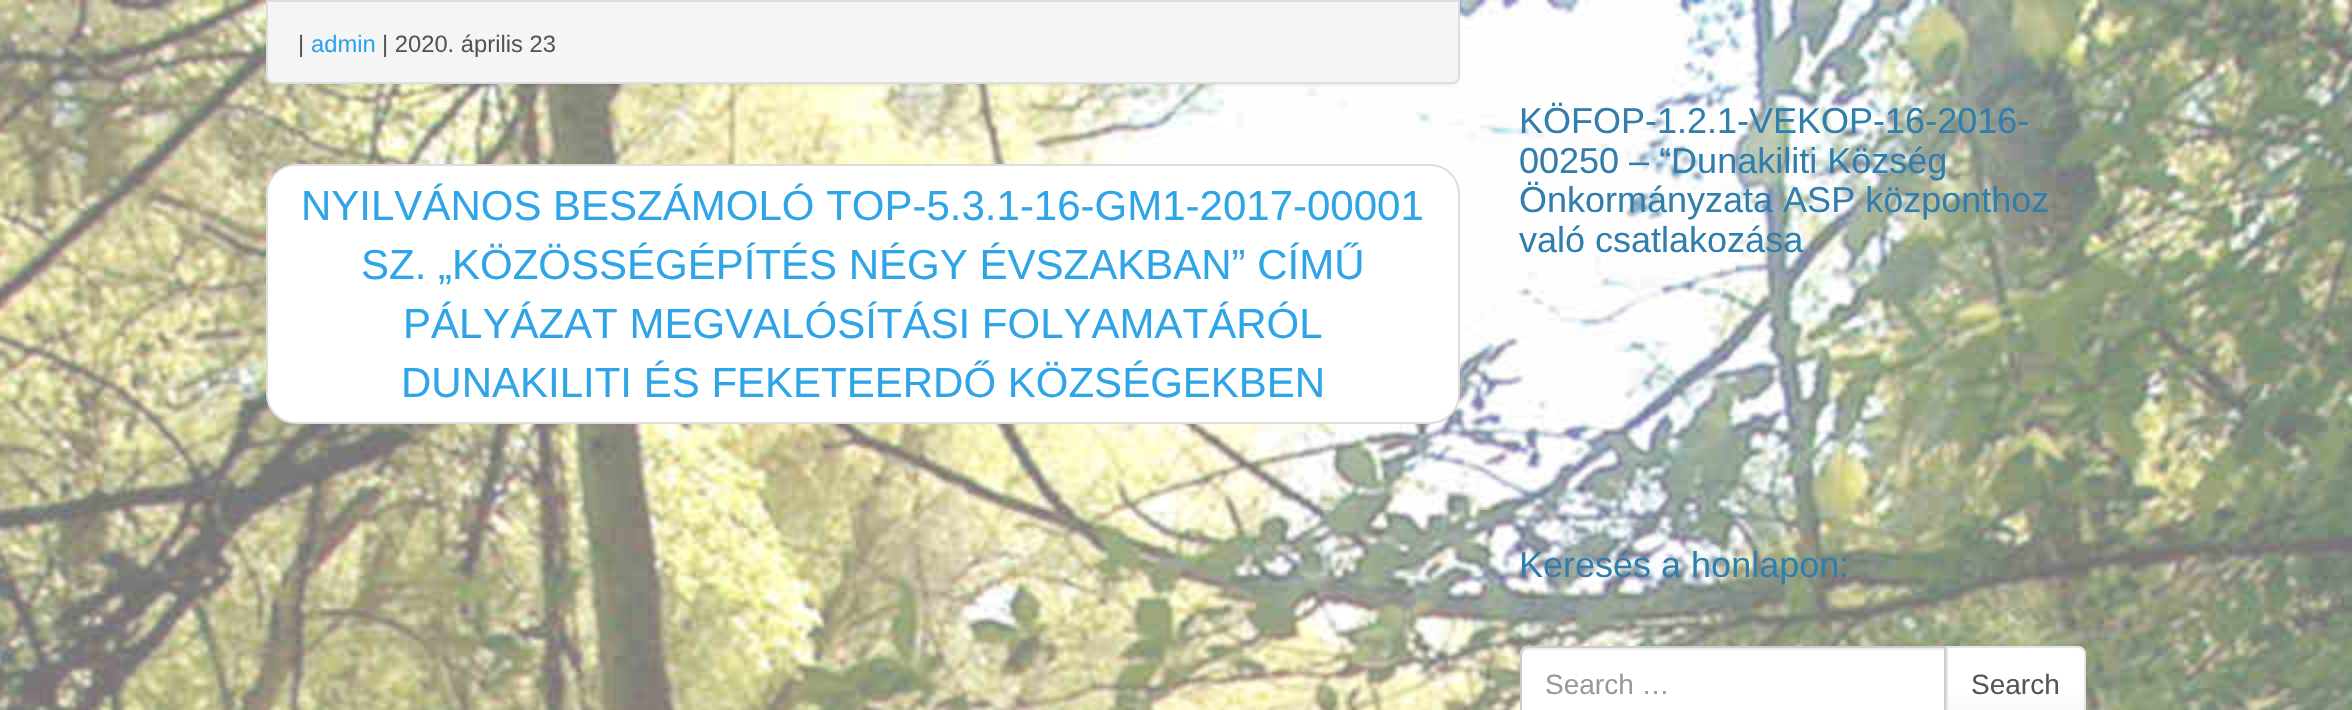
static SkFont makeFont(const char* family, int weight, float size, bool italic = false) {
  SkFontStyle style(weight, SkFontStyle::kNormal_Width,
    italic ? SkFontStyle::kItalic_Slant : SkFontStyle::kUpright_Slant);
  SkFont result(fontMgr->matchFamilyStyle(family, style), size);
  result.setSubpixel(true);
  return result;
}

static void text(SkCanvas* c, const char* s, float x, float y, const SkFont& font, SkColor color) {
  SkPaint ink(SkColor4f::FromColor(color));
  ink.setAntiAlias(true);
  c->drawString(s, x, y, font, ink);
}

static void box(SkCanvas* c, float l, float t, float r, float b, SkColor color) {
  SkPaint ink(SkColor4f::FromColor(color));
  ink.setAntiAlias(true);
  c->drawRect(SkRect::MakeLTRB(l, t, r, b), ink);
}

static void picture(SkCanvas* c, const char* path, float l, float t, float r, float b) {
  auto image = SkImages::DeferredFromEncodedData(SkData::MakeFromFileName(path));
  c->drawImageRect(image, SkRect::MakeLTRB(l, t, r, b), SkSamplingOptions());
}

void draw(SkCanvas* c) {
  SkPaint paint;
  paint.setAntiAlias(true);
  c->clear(0xffffffff);
  picture(c, "img_01.png", 0, 0, 2352, 710);
  paint.setColor(0x0d000000);
  paint.setMaskFilter(SkMaskFilter::MakeBlur(kNormal_SkBlurStyle, 1));
  c->drawRoundRect(SkRect::MakeLTRB(266, -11, 1460, 86), 8, 8, paint);
  paint.setMaskFilter(nullptr);
  paint.setStyle(SkPaint::kStroke_Style);
  paint.setStrokeWidth(2);
  paint.setColor(0xffdddddd);
  c->drawRoundRect(SkRect::MakeLTRB(267, -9, 1459, 83), 7, 7, paint);
  paint.setStyle(SkPaint::kFill_Style);
  paint.setColor(0xfff5f5f5);
  c->drawPath(SkPathBuilder().moveTo(268, 0).lineTo(1458, 0).lineTo(1458, 76).cubicTo(1458, 79.5f, 1455.5f, 82, 1452, 82).lineTo(274, 82).cubicTo(270.5f, 82, 268, 79.5f, 268, 76).close().detach(), paint);
  box(c, 268, 0, 1458, 2, 0xffdddddd);
  SkFont face1 = makeFont("Liberation Sans", 400, 23.75f);
  text(c, "|", 298, 52, face1, 0xff555555);
  text(c, "admin", 311, 52, face1, 0xff2fa4e7);
  text(c, "| 2020. április 23", 382, 52, face1, 0xff555555);
  paint.setColor(0xffffffff);
  c->drawRoundRect(SkRect::MakeLTRB(267, 165, 1459, 423), 29, 29, paint);
  paint.setStyle(SkPaint::kStroke_Style);
  paint.setColor(0xffdddddd);
  c->drawRoundRect(SkRect::MakeLTRB(267, 165, 1459, 423), 29, 29, paint);
  SkFont face2 = makeFont("Liberation Sans", 400, 42);
  text(c, "NYILVÁNOS BESZÁMOLÓ TOP-5.3.1-16-GM1-2017-00001", 301, 220, face2, 0xff2fa4e7);
  text(c, "SZ. „KÖZÖSSÉGÉPÍTÉS NÉGY ÉVSZAKBAN” CÍMŰ", 361, 279, face2, 0xff2fa4e7);
  text(c, "PÁLYÁZAT MEGVALÓSÍTÁSI FOLYAMATÁRÓL", 403, 338, face2, 0xff2fa4e7);
  text(c, "DUNAKILITI ÉS FEKETEERDŐ KÖZSÉGEKBEN", 401, 397, face2, 0xff2fa4e7);
  SkFont face3 = makeFont("Liberation Sans", 400, 36);
  text(c, "KÖFOP-1.2.1-VEKOP-16-2016-", 1519, 133, face3, 0xff317eac);
  text(c, "00250 – “Dunakiliti Község", 1519, 173, face3, 0xff317eac);
  text(c, "Önkormányzata ASP központhoz", 1519, 212, face3, 0xff317eac);
  text(c, "való csatlakozása", 1519, 252, face3, 0xff317eac);
  text(c, "Keresés a honlapon:", 1519, 577, face3, 0xff317eac);
  paint.setStyle(SkPaint::kFill_Style);
  paint.setColor(0xffffffff);
  c->drawPath(SkPathBuilder().moveTo(1528, 646).lineTo(1946, 646).lineTo(1946, 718).lineTo(1528, 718).cubicTo(1523.5f, 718, 1520, 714.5f, 1520, 710).lineTo(1520, 654).cubicTo(1520, 649.5f, 1523.5f, 646, 1528, 646).close().detach(), paint);
  paint.setColor(0xffececec);
  c->drawPath(SkPathBuilder().moveTo(1528, 650).lineTo(1944, 650).lineTo(1944, 648).lineTo(1528, 648).cubicTo(1525, 648, 1522, 651, 1522, 654).lineTo(1522, 656).cubicTo(1522, 653, 1525, 650, 1528, 650).close().detach(), paint);
  paint.setStyle(SkPaint::kStroke_Style);
  paint.setColor(0xffcccccc);
  c->drawPath(SkPathBuilder().moveTo(1528, 647).lineTo(1945, 647).lineTo(1945, 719).lineTo(1528, 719).cubicTo(1524, 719, 1521, 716, 1521, 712).lineTo(1521, 654).cubicTo(1521, 650, 1524, 647, 1528, 647).close().detach(), paint);
  SkFont face4 = makeFont("Liberation Sans", 400, 28);
  text(c, "Search …", 1545, 694, face4, 0xff999999);
  paint.setStyle(SkPaint::kFill_Style);
  paint.setColor(0xffffffff);
  c->drawPath(SkPathBuilder().moveTo(1946, 646).lineTo(2078, 646).cubicTo(2082.5f, 646, 2086, 649.5f, 2086, 654).lineTo(2086, 710).cubicTo(2086, 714.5f, 2082.5f, 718, 2078, 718).lineTo(1946, 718).close().detach(), paint);
  {
    const SkColor colors[] = {0xffffffff, 0xffffffff, 0xfff5f5f5};
    const float stops[] = {0, 0.6f, 1};
    const SkPoint ends[] = {{2016, 648}, {2016, 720}};
    paint.setShader(SkGradientShader::MakeLinear(ends, colors, stops, 3, SkTileMode::kClamp));
    paint.setAlpha(255);
  }
  c->drawRect(SkRect::MakeLTRB(1948, 648, 2084, 710), paint);
  paint.setShader(nullptr);
  paint.setColor(0x1a000000);
  c->drawPath(SkPathBuilder().moveTo(1946, 646).lineTo(1948, 648).lineTo(2079, 648).lineTo(2082, 650).lineTo(2084, 648).cubicTo(2082, 647, 2080, 646, 2078, 646).close().detach(), paint);
  c->drawPath(SkPathBuilder().moveTo(2086, 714).lineTo(2086, 654).cubicTo(2086, 652, 2085, 650, 2084, 648).lineTo(2082, 650).cubicTo(2083, 651, 2084, 652, 2084, 654).lineTo(2084, 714).cubicTo(2084, 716, 2083, 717, 2082, 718).lineTo(2084, 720).cubicTo(2085, 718, 2086, 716, 2086, 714).close().detach(), paint);
  c->drawPath(SkPathBuilder().moveTo(1946, 646).lineTo(1946, 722).lineTo(1948, 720).lineTo(1948, 648).close().detach(), paint);
  text(c, "Search", 1971, 694, face4, 0xff555555);
}
